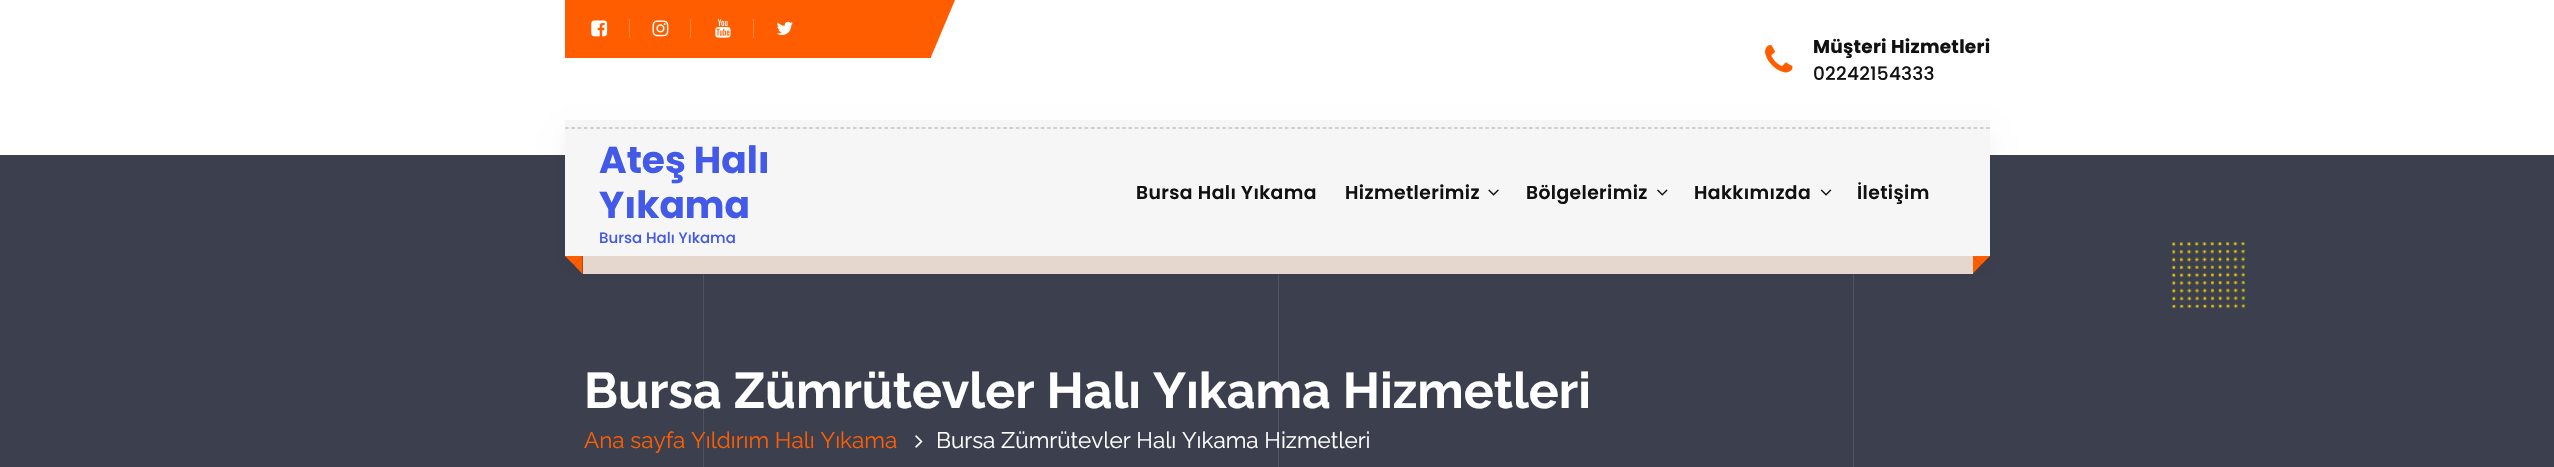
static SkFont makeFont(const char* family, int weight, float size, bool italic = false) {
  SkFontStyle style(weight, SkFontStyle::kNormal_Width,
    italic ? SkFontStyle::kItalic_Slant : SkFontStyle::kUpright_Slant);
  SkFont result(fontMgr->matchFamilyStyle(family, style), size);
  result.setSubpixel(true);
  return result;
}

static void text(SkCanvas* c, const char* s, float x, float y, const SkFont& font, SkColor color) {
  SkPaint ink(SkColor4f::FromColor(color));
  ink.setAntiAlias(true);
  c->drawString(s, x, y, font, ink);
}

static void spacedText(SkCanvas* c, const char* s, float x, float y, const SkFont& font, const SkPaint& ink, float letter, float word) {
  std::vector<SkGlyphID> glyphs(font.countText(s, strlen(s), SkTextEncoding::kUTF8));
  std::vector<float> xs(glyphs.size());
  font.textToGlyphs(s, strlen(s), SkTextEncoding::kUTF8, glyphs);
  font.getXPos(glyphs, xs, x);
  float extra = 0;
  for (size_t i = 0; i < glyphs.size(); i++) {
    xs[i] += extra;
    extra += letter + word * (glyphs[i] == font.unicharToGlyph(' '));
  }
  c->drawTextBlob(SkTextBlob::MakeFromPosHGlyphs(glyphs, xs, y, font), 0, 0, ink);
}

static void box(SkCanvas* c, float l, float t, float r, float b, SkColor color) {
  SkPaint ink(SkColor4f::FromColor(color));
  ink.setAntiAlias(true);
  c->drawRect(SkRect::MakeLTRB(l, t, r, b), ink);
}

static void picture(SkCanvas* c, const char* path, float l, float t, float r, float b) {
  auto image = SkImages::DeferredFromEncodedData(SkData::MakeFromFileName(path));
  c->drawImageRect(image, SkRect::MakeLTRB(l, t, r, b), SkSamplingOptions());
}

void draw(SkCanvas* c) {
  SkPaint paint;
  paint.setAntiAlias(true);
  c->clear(0xff3c404e);
  box(c, 0, 0, 2554, 155, 0xffffffff);
  box(c, 565, 0, 931, 58, 0xffff5d00);
  picture(c, "img_01.png", 591, 20, 608, 37);
  box(c, 629, 19, 630, 38, 0xffff8640);
  picture(c, "img_02.png", 652, 20, 669, 37);
  box(c, 690, 19, 691, 38, 0xffff8640);
  picture(c, "img_03.png", 715, 19, 731, 38);
  box(c, 753, 19, 754, 38, 0xffff8640);
  picture(c, "img_04.png", 777, 21, 793, 35);
  paint.setColor(0xffff5d00);
  c->drawPath(SkPathBuilder().moveTo(830, 0).lineTo(955, 0).lineTo(931, 57).lineTo(806, 57).close().detach(), paint);
  picture(c, "img_05.png", 1765, 45, 1793, 73);
  SkFont face1 = makeFont("Poppins", 700, 18.5f);
  paint.setColor(0xff111111);
  spacedText(c, "Müşteri Hizmetleri", 1813, 53, face1, paint, 0.25f, 0);
  SkFont face2 = makeFont("Poppins", 500, 18.5f);
  spacedText(c, "02242154333", 1813, 80, face2, paint, 0.25f, 0);
  box(c, 703, 274, 704, 467, 0xff505360);
  box(c, 1278, 274, 1279, 467, 0xff505360);
  box(c, 1853, 274, 1854, 467, 0xff505360);
  paint.setColor(0x0d000000);
  paint.setMaskFilter(SkMaskFilter::MakeBlur(kNormal_SkBlurStyle, 9.5f));
  c->drawRect(SkRect::MakeLTRB(565, 133, 1990, 269), paint);
  paint.setMaskFilter(nullptr);
  box(c, 565, 120, 1990, 256, 0xfff6f6f6);
  paint.setStyle(SkPaint::kStroke_Style);
  paint.setStrokeWidth(1.2f);
  paint.setColor(0xffababab);
  paint.setPathEffect(SkDashPathEffect::Make({{3.75f, 2.51f}}, 0));
  c->drawPath(SkPathBuilder().moveTo(565, 128).lineTo(1990, 128).detach(), paint);
  paint.setPathEffect(nullptr);
  SkFont face3 = makeFont("Poppins", 700, 37.5f);
  text(c, "Ateş Halı", 599, 173, face3, 0xff4359e8);
  text(c, "Yıkama", 599, 218, face3, 0xff4359e8);
  SkFont face4 = makeFont("Poppins", 500, 15);
  text(c, "Bursa Halı Yıkama", 599, 243, face4, 0xff4359e8);
  SkFont face5 = makeFont("Poppins", 600, 18.75f);
  paint.setStyle(SkPaint::kFill_Style);
  paint.setColor(0xff111111);
  spacedText(c, "Bursa Halı Yıkama", 1136, 199, face5, paint, 0.4f, 0);
  spacedText(c, "Hizmetlerimiz", 1345, 199, face5, paint, 0.4f, 0);
  picture(c, "img_06.png", 1488, 189, 1499, 196);
  spacedText(c, "Bölgelerimiz", 1526, 199, face5, paint, 0.4f, 0);
  picture(c, "img_07.png", 1657, 189, 1668, 196);
  spacedText(c, "Hakkımızda", 1694, 199, face5, paint, 0.4f, 0);
  picture(c, "img_08.png", 1820, 189, 1832, 196);
  spacedText(c, "İletişim", 1857, 199, face5, paint, 0.4f, 0);
  paint.setColor(0xffff5d00);
  c->drawPath(SkPathBuilder().moveTo(565, 256).lineTo(582.5f, 256).lineTo(574, 265).close().detach(), paint);
  c->drawPath(SkPathBuilder().moveTo(582.5f, 256).lineTo(582.5f, 274).lineTo(574, 265).close().detach(), paint);
  c->drawPath(SkPathBuilder().moveTo(1972.5f, 256).lineTo(1990, 256).lineTo(1981, 265).close().detach(), paint);
  c->drawPath(SkPathBuilder().moveTo(1972.5f, 274).lineTo(1972.5f, 256).lineTo(1981, 265).close().detach(), paint);
  box(c, 583, 256, 1973, 274, 0xffe6d7ce);
  picture(c, "img_09.png", 2172, 242, 2245, 308);
  SkFont face6 = makeFont("Raleway", 700, 50);
  text(c, "Bursa Zümrütevler Halı Yıkama Hizmetleri", 584, 408, face6, 0xffffffff);
  SkFont face7 = makeFont("Raleway", 400, 22.5f);
  text(c, "Ana sayfa Yıldırım Halı Yıkama", 584, 448, face7, 0xffff5d00);
  picture(c, "img_10.png", 915, 435, 923, 448);
  text(c, "Bursa Zümrütevler Halı Yıkama Hizmetleri", 936, 448, face7, 0xffffffff);
}
